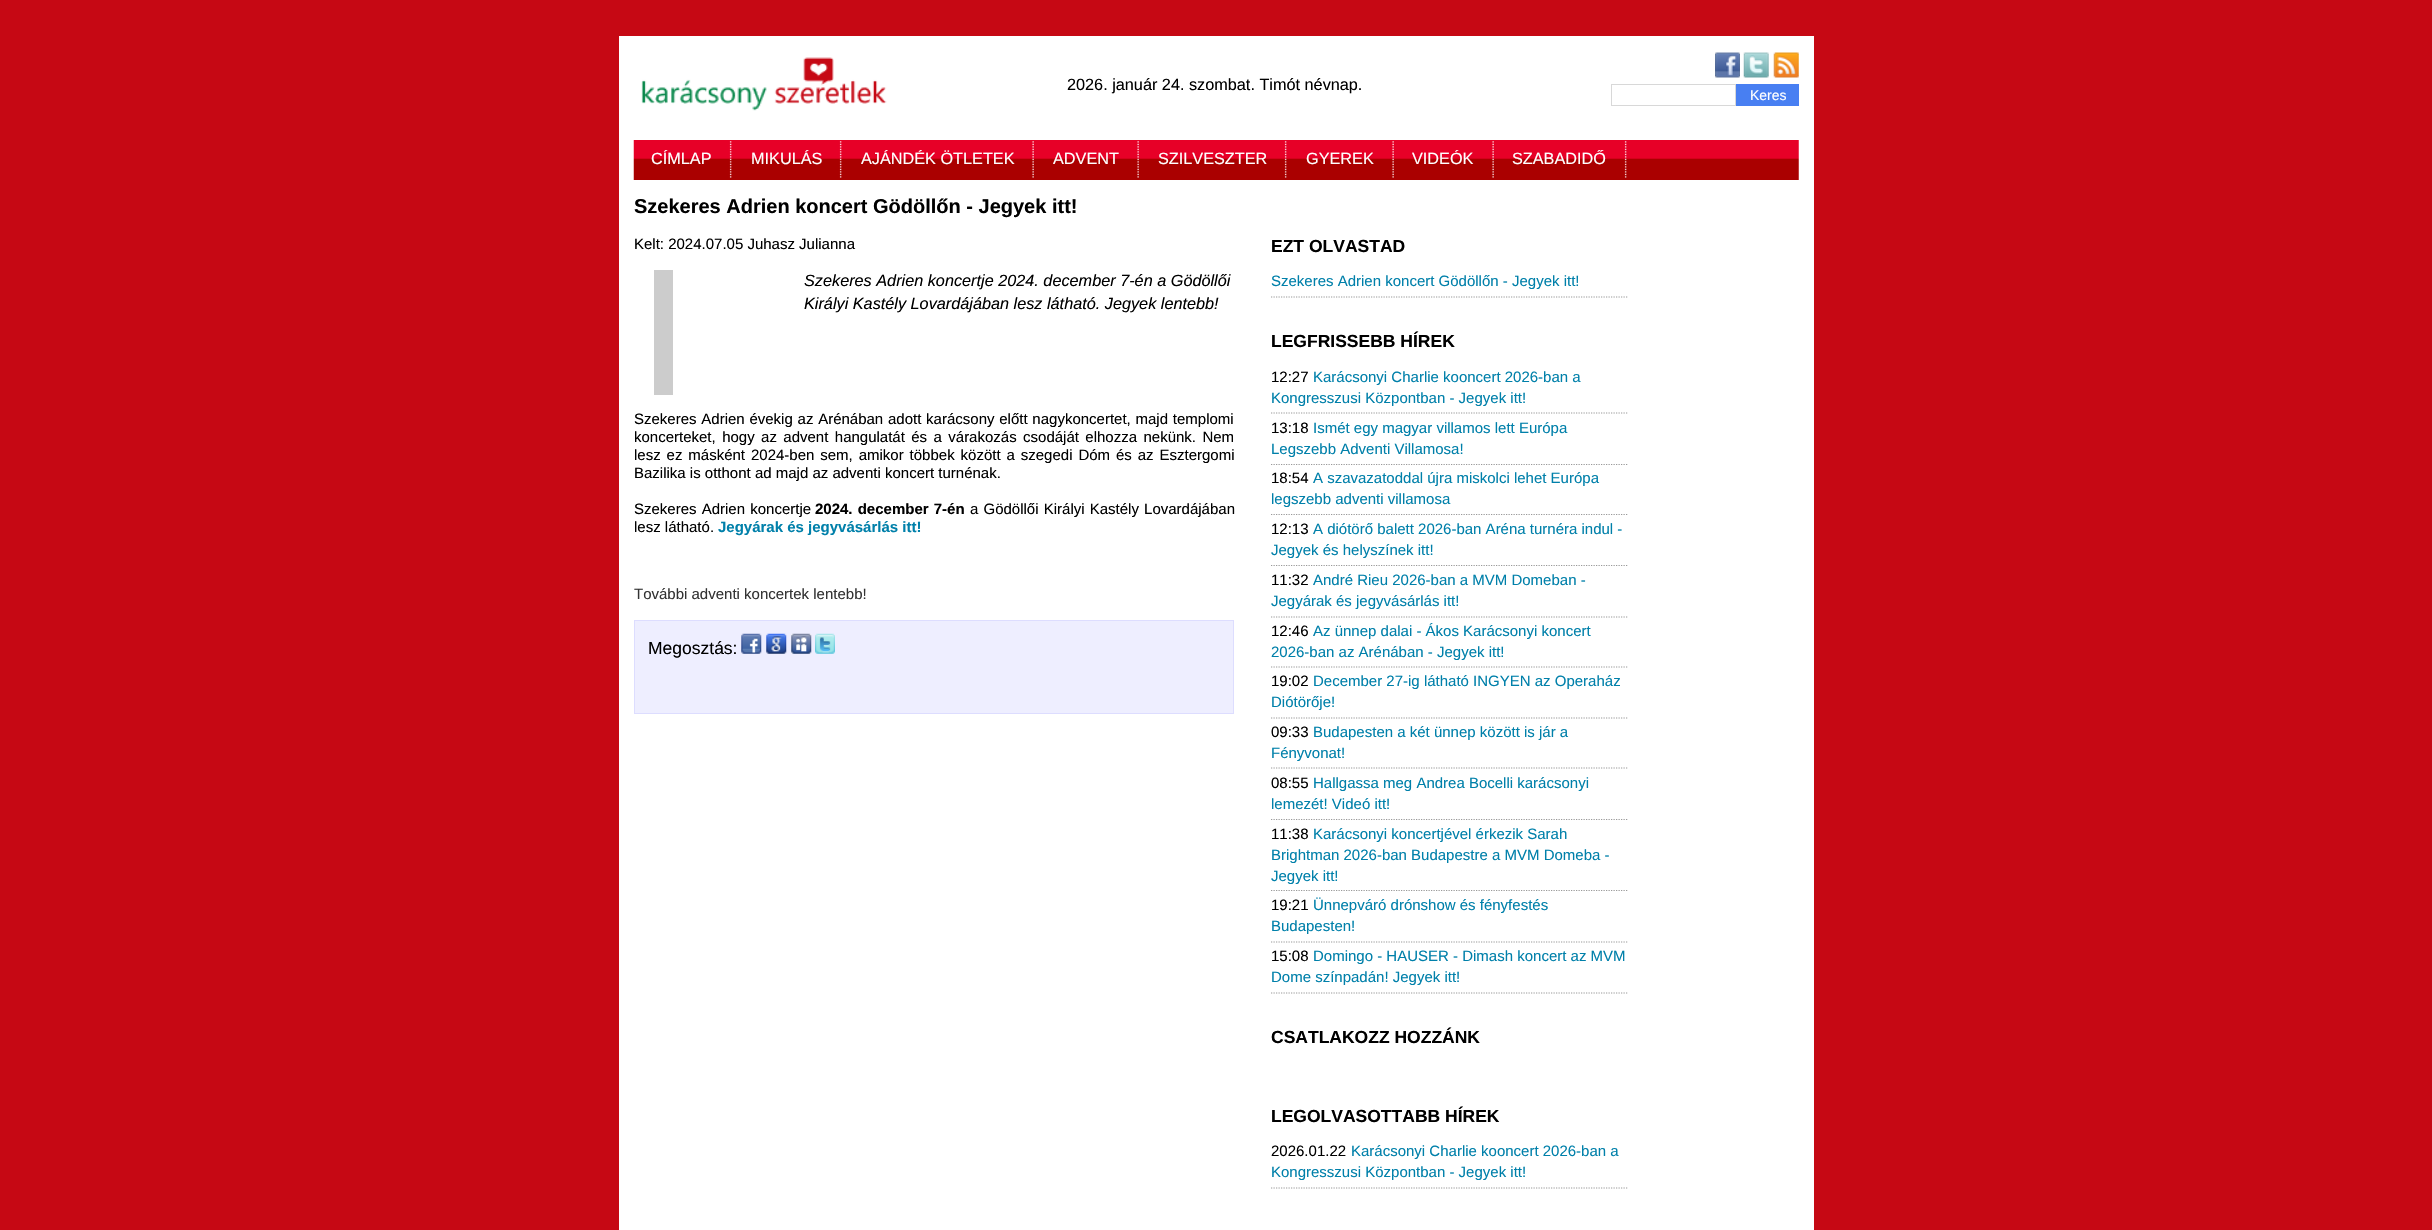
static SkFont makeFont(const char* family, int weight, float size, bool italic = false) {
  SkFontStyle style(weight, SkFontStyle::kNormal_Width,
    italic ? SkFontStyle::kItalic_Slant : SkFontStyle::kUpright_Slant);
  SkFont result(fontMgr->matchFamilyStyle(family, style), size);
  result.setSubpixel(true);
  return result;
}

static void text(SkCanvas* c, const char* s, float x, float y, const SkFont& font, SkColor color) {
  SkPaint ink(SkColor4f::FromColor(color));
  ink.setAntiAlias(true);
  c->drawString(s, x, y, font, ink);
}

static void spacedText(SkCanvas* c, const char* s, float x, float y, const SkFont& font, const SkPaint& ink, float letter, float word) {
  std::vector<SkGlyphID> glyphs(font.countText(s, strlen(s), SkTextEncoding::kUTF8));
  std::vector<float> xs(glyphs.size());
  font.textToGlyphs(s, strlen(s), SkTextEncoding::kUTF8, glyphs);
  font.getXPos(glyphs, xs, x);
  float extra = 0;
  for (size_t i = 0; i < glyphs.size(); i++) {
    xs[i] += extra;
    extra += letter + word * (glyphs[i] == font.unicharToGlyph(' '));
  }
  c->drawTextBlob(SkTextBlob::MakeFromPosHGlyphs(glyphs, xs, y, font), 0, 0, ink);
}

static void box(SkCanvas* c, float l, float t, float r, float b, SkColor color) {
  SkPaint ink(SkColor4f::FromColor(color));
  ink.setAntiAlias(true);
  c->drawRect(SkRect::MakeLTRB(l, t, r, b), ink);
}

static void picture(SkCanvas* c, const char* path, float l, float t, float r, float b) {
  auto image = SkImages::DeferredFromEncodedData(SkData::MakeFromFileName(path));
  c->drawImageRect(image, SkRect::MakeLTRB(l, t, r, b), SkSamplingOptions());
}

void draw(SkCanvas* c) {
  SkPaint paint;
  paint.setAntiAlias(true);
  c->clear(0xffc60814);
  box(c, 619, 36, 1814, 1230, 0xffffffff);
  picture(c, "img_01.png", 641, 57, 887, 111);
  SkFont face1 = makeFont("Liberation Sans", 400, 16.25f);
  text(c, "2026. január 24. szombat. Timót névnap.", 1067, 90, face1, 0xff000000);
  picture(c, "img_02.png", 1715, 52, 1740, 78);
  picture(c, "img_03.png", 1743, 52, 1769, 78);
  picture(c, "img_04.png", 1773, 52, 1799, 78);
  paint.setStyle(SkPaint::kStroke_Style);
  paint.setStrokeWidth(1);
  paint.setColor(0xffd8d8d8);
  c->drawRect(SkRect::MakeLTRB(1611.5f, 84.5f, 1735.5f, 105.5f), paint);
  box(c, 1736, 84, 1799, 106, 0xff487ff2);
  SkFont face2 = makeFont("Liberation Sans", 400, 14);
  text(c, "Keres", 1750, 100, face2, 0xffffffff);
  picture(c, "img_05.png", 633, 140, 1799, 180);
  text(c, "CÍMLAP", 651, 164, face1, 0xffffffff);
  picture(c, "img_06.png", 729, 141, 732, 178);
  text(c, "MIKULÁS", 751, 164, face1, 0xffffffff);
  picture(c, "img_06.png", 839, 141, 842, 178);
  text(c, "AJÁNDÉK ÖTLETEK", 861, 164, face1, 0xffffffff);
  picture(c, "img_07.png", 1032, 141, 1034, 178);
  text(c, "ADVENT", 1053, 164, face1, 0xffffffff);
  picture(c, "img_07.png", 1137, 141, 1139, 178);
  text(c, "SZILVESZTER", 1158, 164, face1, 0xffffffff);
  picture(c, "img_06.png", 1284, 141, 1287, 178);
  text(c, "GYEREK", 1306, 164, face1, 0xffffffff);
  picture(c, "img_07.png", 1392, 141, 1394, 178);
  text(c, "VIDEÓK", 1412, 164, face1, 0xffffffff);
  picture(c, "img_07.png", 1492, 141, 1494, 178);
  text(c, "SZABADIDŐ", 1512, 164, face1, 0xffffffff);
  picture(c, "img_06.png", 1624, 141, 1627, 178);
  SkFont face3 = makeFont("Liberation Sans", 700, 20);
  text(c, "Szekeres Adrien koncert Gödöllőn - Jegyek itt!", 634, 213, face3, 0xff000000);
  SkFont face4 = makeFont("Liberation Sans", 400, 15);
  text(c, "Kelt: 2024.07.05 Juhasz Julianna", 634, 249, face4, 0xff000000);
  box(c, 654, 270, 673, 395, 0xffcccccc);
  SkFont face5 = makeFont("Liberation Sans", 400, 16.25f, true);
  text(c, "Szekeres Adrien koncertje 2024. december 7-én a Gödöllői", 804, 286, face5, 0xff000000);
  text(c, "Királyi Kastély Lovardájában lesz látható. Jegyek lentebb!", 804, 309, face5, 0xff000000);
  paint.setStyle(SkPaint::kFill_Style);
  paint.setColor(0xff000000);
  spacedText(c, "Szekeres Adrien évekig az Arénában adott karácsony előtt nagykoncertet, majd templomi", 634, 424, face4, paint, 0, 0.6f);
  spacedText(c, "koncerteket, hogy az advent hangulatát és a várakozás csodáját elhozza nekünk. Nem", 634, 442, face4, paint, 0, 2.25f);
  spacedText(c, "lesz ez másként 2024-ben sem, amikor többek között a szegedi Dóm és az Esztergomi", 634, 460, face4, paint, 0, 1.75f);
  text(c, "Bazilika is otthont ad majd az adventi koncert turnénak.", 634, 478, face4, 0xff000000);
  spacedText(c, "Szekeres Adrien koncertje", 634, 514, face4, paint, 0, 1);
  SkFont face6 = makeFont("Liberation Sans", 700, 15);
  spacedText(c, "2024. december 7-én", 815, 514, face6, paint, 0, 1);
  spacedText(c, "a Gödöllői Királyi Kastély Lovardájában", 970, 514, face4, paint, 0, 1);
  text(c, "lesz látható.", 634, 532, face4, 0xff000000);
  text(c, "Jegyárak és jegyvásárlás itt!", 718, 532, face6, 0xff0080aa);
  text(c, "További adventi koncertek lentebb!", 634, 599, face4, 0xff333333);
  paint.setColor(0xffeeeeff);
  c->drawRect(SkRect::MakeLTRB(634.5f, 620.5f, 1233.5f, 713.5f), paint);
  paint.setStyle(SkPaint::kStroke_Style);
  paint.setColor(0xffddddff);
  c->drawRect(SkRect::MakeLTRB(634.5f, 620.5f, 1233.5f, 713.5f), paint);
  SkFont face7 = makeFont("Liberation Sans", 400, 17.5f);
  text(c, "Megosztás:", 648, 654, face7, 0xff000000);
  picture(c, "img_08.png", 741, 633, 762, 654);
  picture(c, "img_09.png", 766, 633, 787, 654);
  picture(c, "img_10.png", 791, 633, 812, 654);
  picture(c, "img_11.png", 815, 633, 835, 654);
  SkFont face8 = makeFont("Liberation Sans", 700, 17.5f);
  text(c, "EZT OLVASTAD", 1271, 252, face8, 0xff000000);
  paint.setStrokeWidth(1.2f);
  paint.setColor(0xff999999);
  paint.setPathEffect(SkDashPathEffect::Make({{1.25f, 1.25f}}, 0));
  c->drawPath(SkPathBuilder().moveTo(1271, 297).lineTo(1627.5f, 297).detach(), paint);
  paint.setPathEffect(nullptr);
  text(c, "Szekeres Adrien koncert Gödöllőn - Jegyek itt!", 1271, 286, face4, 0xff0080aa);
  text(c, "LEGFRISSEBB HÍREK", 1271, 347, face8, 0xff000000);
  paint.setPathEffect(SkDashPathEffect::Make({{1.25f, 1.25f}}, 0));
  c->drawPath(SkPathBuilder().moveTo(1271, 413).lineTo(1627.5f, 413).detach(), paint);
  paint.setPathEffect(nullptr);
  text(c, "12:27", 1271, 382, face4, 0xff000000);
  text(c, "Karácsonyi Charlie kooncert 2026-ban a", 1313, 382, face4, 0xff0080aa);
  text(c, "Kongresszusi Központban - Jegyek itt!", 1271, 403, face4, 0xff0080aa);
  paint.setPathEffect(SkDashPathEffect::Make({{1.25f, 1.25f}}, 0));
  c->drawPath(SkPathBuilder().moveTo(1271, 464.5f).lineTo(1627.5f, 464.5f).detach(), paint);
  paint.setPathEffect(nullptr);
  text(c, "13:18", 1271, 433, face4, 0xff000000);
  text(c, "Ismét egy magyar villamos lett Európa", 1313, 433, face4, 0xff0080aa);
  text(c, "Legszebb Adventi Villamosa!", 1271, 454, face4, 0xff0080aa);
  paint.setPathEffect(SkDashPathEffect::Make({{1.25f, 1.25f}}, 0));
  c->drawPath(SkPathBuilder().moveTo(1271, 514.5f).lineTo(1627.5f, 514.5f).detach(), paint);
  paint.setPathEffect(nullptr);
  text(c, "18:54", 1271, 483, face4, 0xff000000);
  text(c, "A szavazatoddal újra miskolci lehet Európa", 1313, 483, face4, 0xff0080aa);
  text(c, "legszebb adventi villamosa", 1271, 504, face4, 0xff0080aa);
  paint.setPathEffect(SkDashPathEffect::Make({{1.25f, 1.25f}}, 0));
  c->drawPath(SkPathBuilder().moveTo(1271, 565.5f).lineTo(1627.5f, 565.5f).detach(), paint);
  paint.setPathEffect(nullptr);
  text(c, "12:13", 1271, 534, face4, 0xff000000);
  text(c, "A diótörő balett 2026-ban Aréna turnéra indul -", 1313, 534, face4, 0xff0080aa);
  text(c, "Jegyek és helyszínek itt!", 1271, 555, face4, 0xff0080aa);
  paint.setPathEffect(SkDashPathEffect::Make({{1.25f, 1.25f}}, 0));
  c->drawPath(SkPathBuilder().moveTo(1271, 617).lineTo(1627.5f, 617).detach(), paint);
  paint.setPathEffect(nullptr);
  text(c, "11:32", 1271, 585, face4, 0xff000000);
  text(c, "André Rieu 2026-ban a MVM Domeban -", 1313, 585, face4, 0xff0080aa);
  text(c, "Jegyárak és jegyvásárlás itt!", 1271, 606, face4, 0xff0080aa);
  paint.setPathEffect(SkDashPathEffect::Make({{1.25f, 1.25f}}, 0));
  c->drawPath(SkPathBuilder().moveTo(1271, 667).lineTo(1627.5f, 667).detach(), paint);
  paint.setPathEffect(nullptr);
  text(c, "12:46", 1271, 636, face4, 0xff000000);
  text(c, "Az ünnep dalai - Ákos Karácsonyi koncert", 1313, 636, face4, 0xff0080aa);
  text(c, "2026-ban az Arénában - Jegyek itt!", 1271, 657, face4, 0xff0080aa);
  paint.setPathEffect(SkDashPathEffect::Make({{1.25f, 1.25f}}, 0));
  c->drawPath(SkPathBuilder().moveTo(1271, 718).lineTo(1627.5f, 718).detach(), paint);
  paint.setPathEffect(nullptr);
  text(c, "19:02", 1271, 686, face4, 0xff000000);
  text(c, "December 27-ig látható INGYEN az Operaház", 1313, 686, face4, 0xff0080aa);
  text(c, "Diótörője!", 1271, 707, face4, 0xff0080aa);
  paint.setPathEffect(SkDashPathEffect::Make({{1.25f, 1.25f}}, 0));
  c->drawPath(SkPathBuilder().moveTo(1271, 768).lineTo(1627.5f, 768).detach(), paint);
  paint.setPathEffect(nullptr);
  text(c, "09:33", 1271, 737, face4, 0xff000000);
  text(c, "Budapesten a két ünnep között is jár a", 1313, 737, face4, 0xff0080aa);
  text(c, "Fényvonat!", 1271, 758, face4, 0xff0080aa);
  paint.setPathEffect(SkDashPathEffect::Make({{1.25f, 1.25f}}, 0));
  c->drawPath(SkPathBuilder().moveTo(1271, 819.5f).lineTo(1627.5f, 819.5f).detach(), paint);
  paint.setPathEffect(nullptr);
  text(c, "08:55", 1271, 788, face4, 0xff000000);
  text(c, "Hallgassa meg Andrea Bocelli karácsonyi", 1313, 788, face4, 0xff0080aa);
  text(c, "lemezét! Videó itt!", 1271, 809, face4, 0xff0080aa);
  paint.setPathEffect(SkDashPathEffect::Make({{1.25f, 1.25f}}, 0));
  c->drawPath(SkPathBuilder().moveTo(1271, 890.5f).lineTo(1627.5f, 890.5f).detach(), paint);
  paint.setPathEffect(nullptr);
  text(c, "11:38", 1271, 839, face4, 0xff000000);
  text(c, "Karácsonyi koncertjével érkezik Sarah", 1313, 839, face4, 0xff0080aa);
  text(c, "Brightman 2026-ban Budapestre a MVM Domeba -", 1271, 860, face4, 0xff0080aa);
  text(c, "Jegyek itt!", 1271, 881, face4, 0xff0080aa);
  paint.setPathEffect(SkDashPathEffect::Make({{1.25f, 1.25f}}, 0));
  c->drawPath(SkPathBuilder().moveTo(1271, 942).lineTo(1627.5f, 942).detach(), paint);
  paint.setPathEffect(nullptr);
  text(c, "19:21", 1271, 910, face4, 0xff000000);
  text(c, "Ünnepváró drónshow és fényfestés", 1313, 910, face4, 0xff0080aa);
  text(c, "Budapesten!", 1271, 931, face4, 0xff0080aa);
  paint.setPathEffect(SkDashPathEffect::Make({{1.25f, 1.25f}}, 0));
  c->drawPath(SkPathBuilder().moveTo(1271, 993).lineTo(1627.5f, 993).detach(), paint);
  paint.setPathEffect(nullptr);
  text(c, "15:08", 1271, 961, face4, 0xff000000);
  text(c, "Domingo - HAUSER - Dimash koncert az MVM", 1313, 961, face4, 0xff0080aa);
  text(c, "Dome színpadán! Jegyek itt!", 1271, 982, face4, 0xff0080aa);
  text(c, "CSATLAKOZZ HOZZÁNK", 1271, 1043, face8, 0xff000000);
  text(c, "LEGOLVASOTTABB HÍREK", 1271, 1122, face8, 0xff000000);
  paint.setPathEffect(SkDashPathEffect::Make({{1.25f, 1.25f}}, 0));
  c->drawPath(SkPathBuilder().moveTo(1271, 1188).lineTo(1627.5f, 1188).detach(), paint);
  paint.setPathEffect(nullptr);
  text(c, "2026.01.22", 1271, 1156, face4, 0xff000000);
  text(c, "Karácsonyi Charlie kooncert 2026-ban a", 1351, 1156, face4, 0xff0080aa);
  text(c, "Kongresszusi Központban - Jegyek itt!", 1271, 1177, face4, 0xff0080aa);
}
